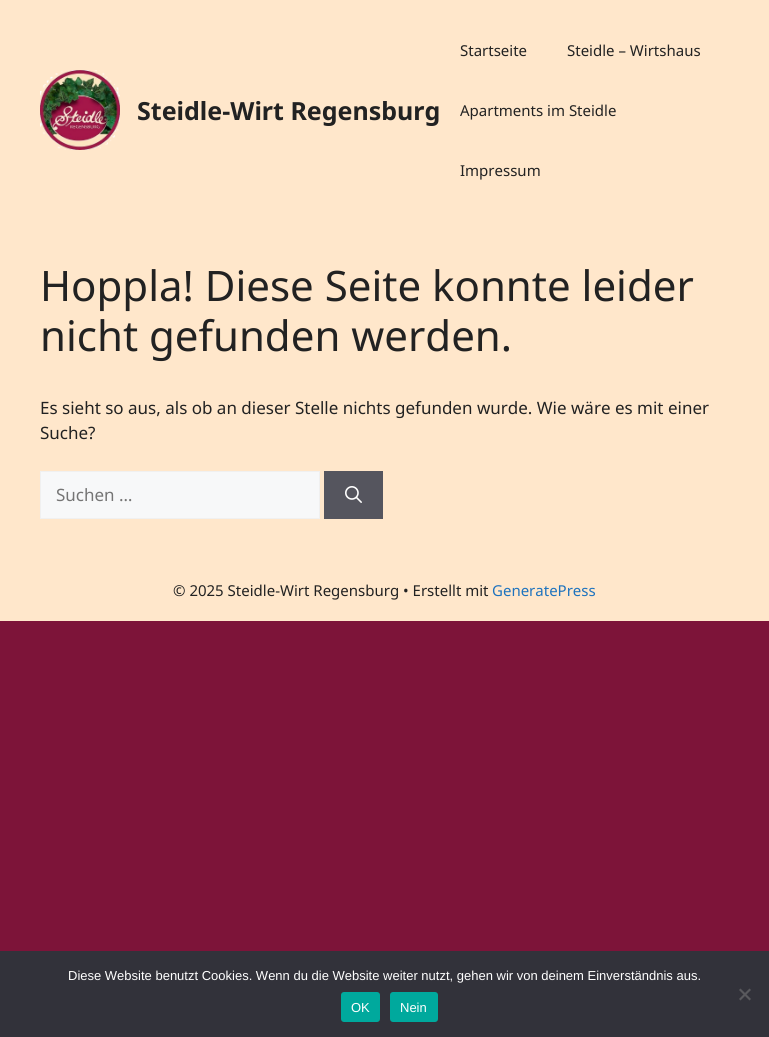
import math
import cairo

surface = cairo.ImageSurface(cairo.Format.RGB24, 769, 1037)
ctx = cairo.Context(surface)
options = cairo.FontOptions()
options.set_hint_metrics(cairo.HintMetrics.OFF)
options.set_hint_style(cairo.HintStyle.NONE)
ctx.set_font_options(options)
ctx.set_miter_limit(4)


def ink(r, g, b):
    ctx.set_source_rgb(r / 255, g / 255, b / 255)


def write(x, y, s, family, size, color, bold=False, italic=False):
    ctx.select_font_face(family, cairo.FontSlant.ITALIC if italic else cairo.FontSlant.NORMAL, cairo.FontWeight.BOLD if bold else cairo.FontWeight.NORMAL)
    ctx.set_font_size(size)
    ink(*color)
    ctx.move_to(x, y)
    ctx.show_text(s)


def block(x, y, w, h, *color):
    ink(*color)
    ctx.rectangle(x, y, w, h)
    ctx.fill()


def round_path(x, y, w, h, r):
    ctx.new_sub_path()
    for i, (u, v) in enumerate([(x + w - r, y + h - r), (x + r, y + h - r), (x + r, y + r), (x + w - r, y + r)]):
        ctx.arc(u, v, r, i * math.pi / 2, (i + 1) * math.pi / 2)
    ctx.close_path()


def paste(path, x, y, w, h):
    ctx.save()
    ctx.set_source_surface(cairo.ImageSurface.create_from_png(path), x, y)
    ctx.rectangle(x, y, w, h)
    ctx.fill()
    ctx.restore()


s1 = dict(family="Noto Sans", size=25, color=(34, 34, 34), bold=True)
s2 = dict(family="Noto Sans", size=15, color=(34, 34, 34))
s3 = dict(family="Noto Sans", size=42, color=(34, 34, 34))
s4 = dict(family="Noto Sans", size=17, color=(34, 34, 34))
s5 = dict(family="Noto Sans", size=17, color=(117, 117, 117))
s6 = dict(family="Noto Sans", size=15, color=(30, 115, 190))
s7 = dict(family="Liberation Sans", size=13, color=(255, 255, 255))

ink(125, 20, 57)
ctx.paint()
block(0, 0, 769, 621, 255, 231, 203)
paste("pic1.png", 40, 70, 80, 80)
write(137, 120, "Steidle-Wirt Regensburg", **s1)
write(460, 56, "Startseite", **s2)
write(567, 56, "Steidle – Wirtshaus", **s2)
write(460, 116, "Apartments im Steidle", **s2)
write(460, 176, "Impressum", **s2)
write(40, 301, "Hoppla! Diese Seite konnte leider", **s3)
write(40, 351, "nicht gefunden werden.", **s3)
write(40, 414, "Es sieht so aus, als ob an dieser Stelle nichts gefunden wurde. Wie wäre es mit einer", **s4)
write(40, 439, "Suche?", **s4)
ink(247, 248, 249)
ctx.rectangle(40.5, 471.5, 279, 47)
ctx.fill_preserve()
ink(240, 240, 240)
ctx.set_line_width(1)
ctx.stroke()
write(56, 501, "Suchen …", **s5)
block(324, 471, 59, 48, 85, 85, 94)
paste("pic2.png", 345, 486, 17, 17)
write(173, 596, "© 2025 Steidle-Wirt Regensburg • Erstellt mit", **s2)
write(492, 596, "GeneratePress", **s6)
block(0, 951, 769, 86, 50, 50, 58)
write(68, 980, "Diese Website benutzt Cookies. Wenn du die Website weiter nutzt, gehen wir von deinem Einverständnis aus.", **s7)
ink(89, 89, 93)
ctx.new_path()
ctx.move_to(749.5, 988.5)
ctx.line_to(751, 990)
ctx.line_to(740.5, 1000.5)
ctx.line_to(739, 999)
ctx.close_path()
ctx.fill()
ctx.new_path()
ctx.move_to(739, 990)
ctx.line_to(740.5, 988.5)
ctx.line_to(751, 999)
ctx.line_to(749.5, 1000.5)
ctx.close_path()
ctx.fill()
ink(0, 169, 157)
round_path(341, 992, 39, 30, 3)
ctx.fill()
write(351, 1012, "OK", **s7)
ink(0, 169, 157)
round_path(390, 992, 48, 30, 3)
ctx.fill()
write(400, 1012, "Nein", **s7)
surface.write_to_png("screenshot.png")
